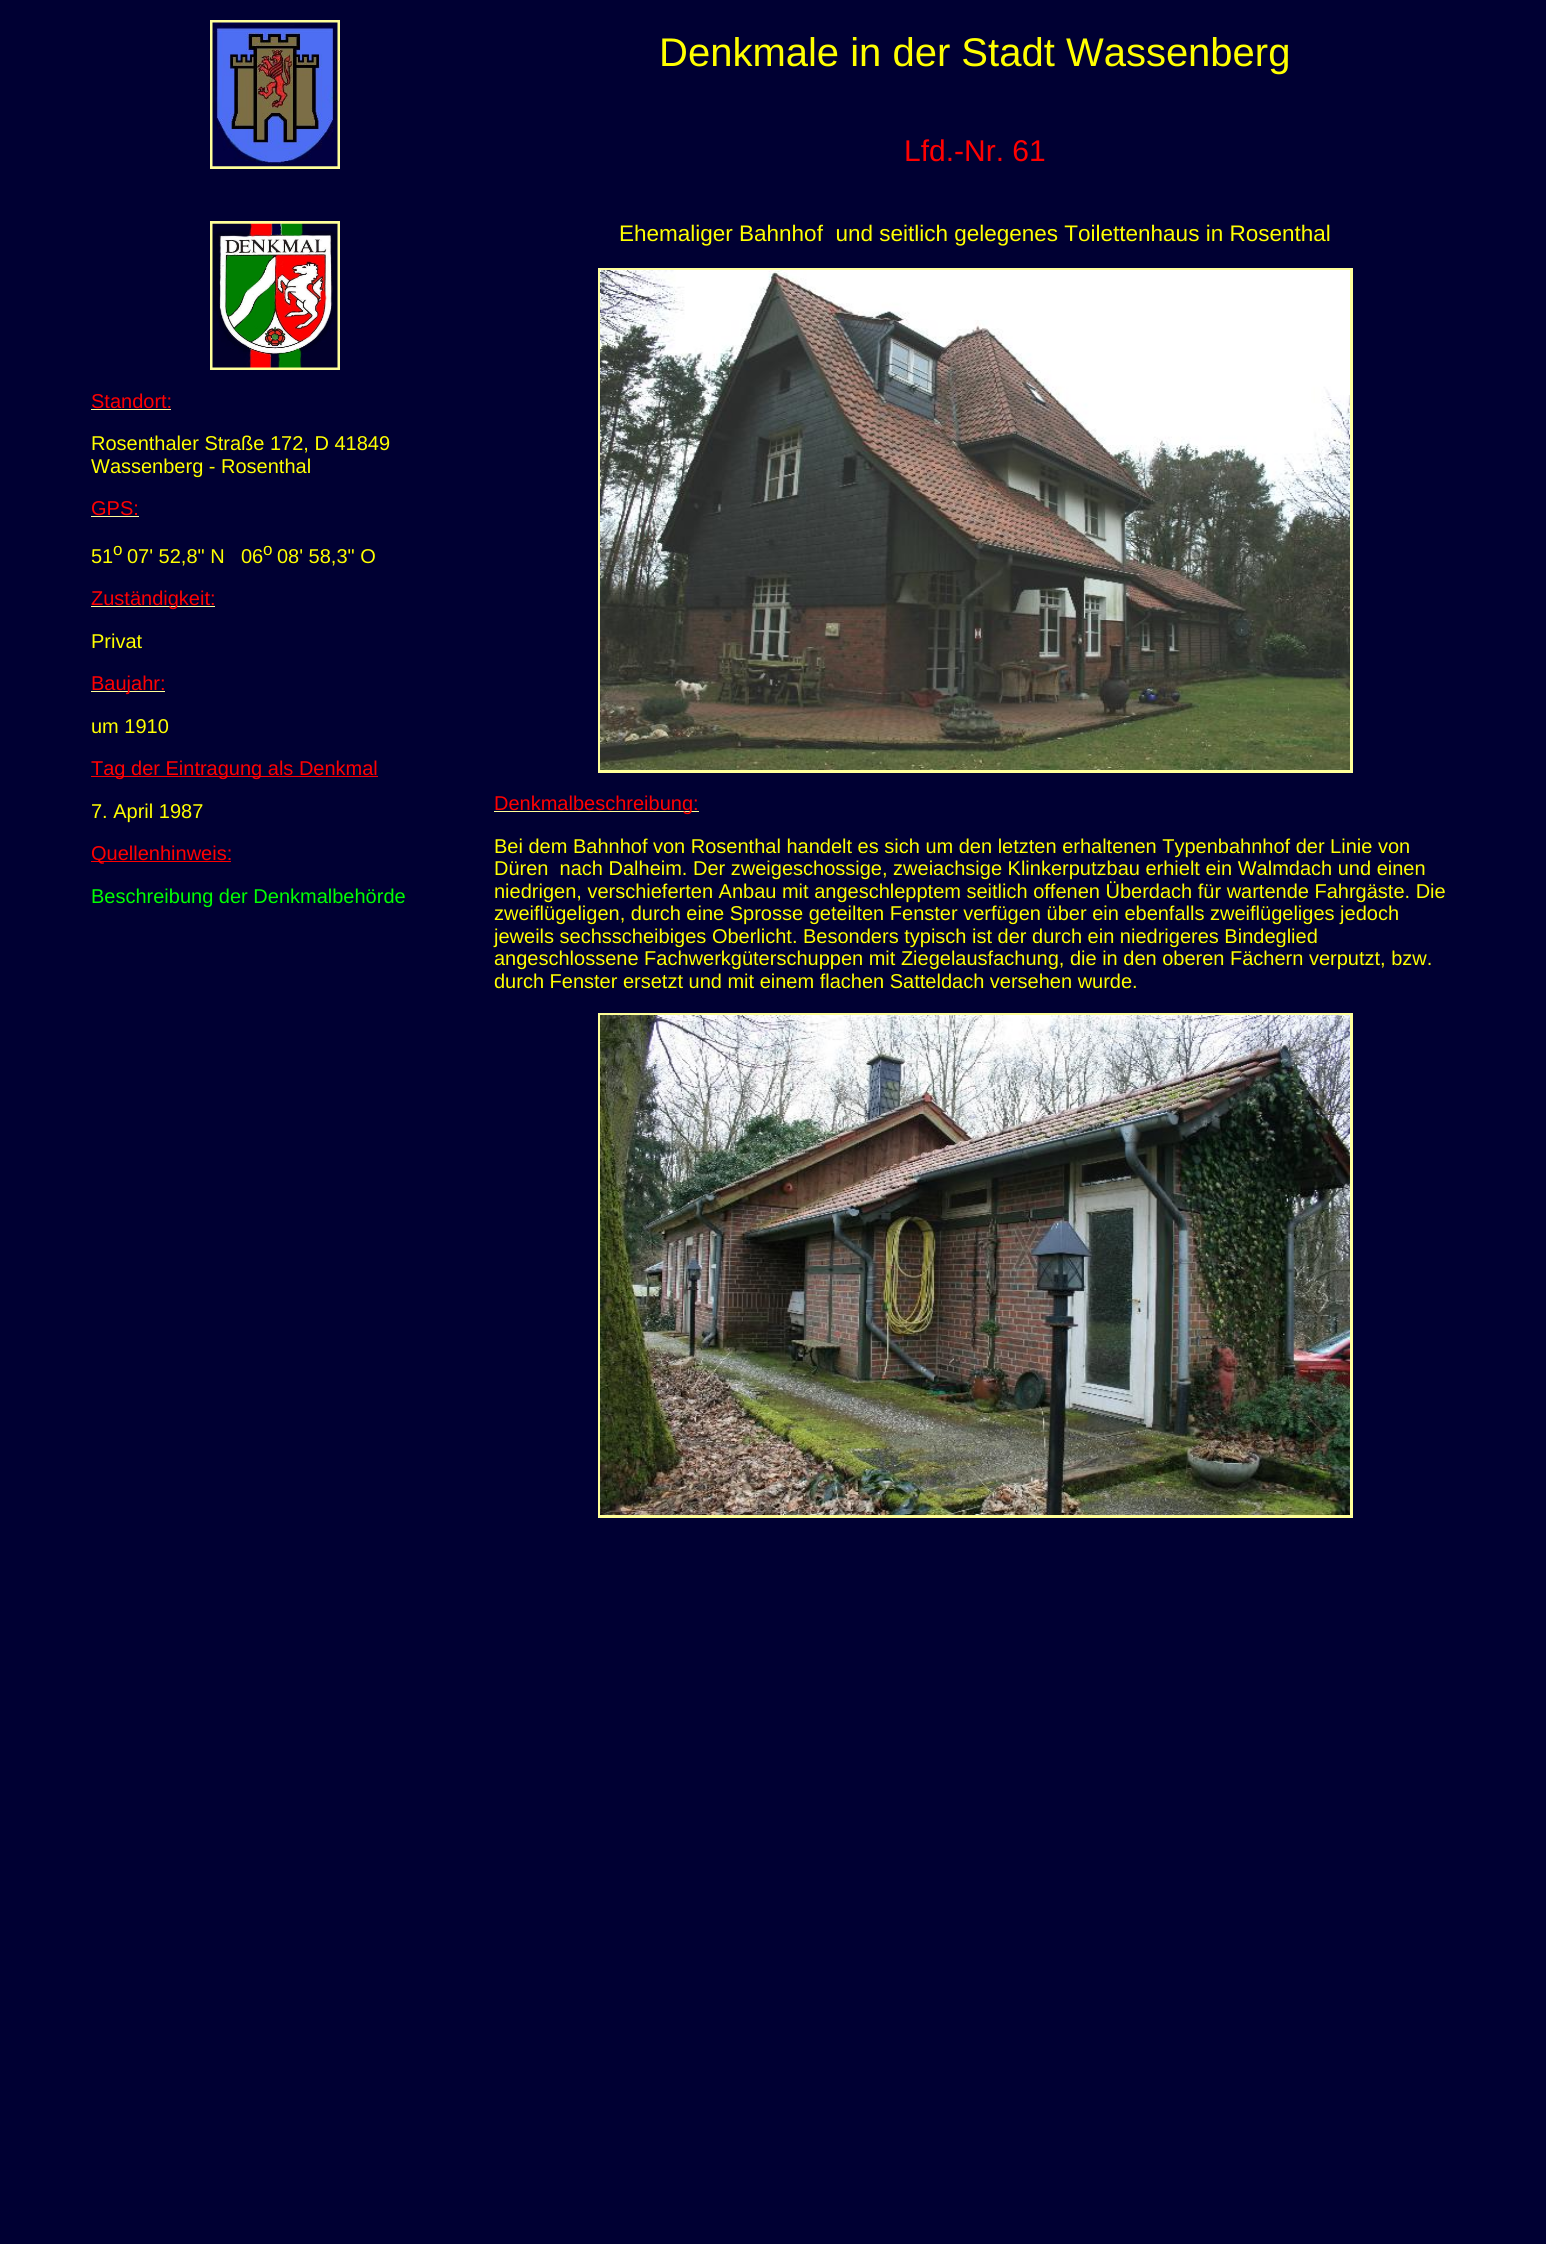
import math
import cairo

surface = cairo.ImageSurface(cairo.Format.RGB24, 1546, 2244)
ctx = cairo.Context(surface)
options = cairo.FontOptions()
options.set_hint_metrics(cairo.HintMetrics.OFF)
options.set_hint_style(cairo.HintStyle.NONE)
ctx.set_font_options(options)
ctx.set_miter_limit(4)


def ink(r, g, b):
    ctx.set_source_rgb(r / 255, g / 255, b / 255)


def write(x, y, s, family, size, color, bold=False, italic=False):
    ctx.select_font_face(family, cairo.FontSlant.ITALIC if italic else cairo.FontSlant.NORMAL, cairo.FontWeight.BOLD if bold else cairo.FontWeight.NORMAL)
    ctx.set_font_size(size)
    ink(*color)
    ctx.move_to(x, y)
    ctx.show_text(s)


def block(x, y, w, h, *color):
    ink(*color)
    ctx.rectangle(x, y, w, h)
    ctx.fill()


def paste(path, x, y, w, h):
    ctx.save()
    ctx.set_source_surface(cairo.ImageSurface.create_from_png(path), x, y)
    ctx.rectangle(x, y, w, h)
    ctx.fill()
    ctx.restore()


s1 = dict(family="Liberation Sans", size=40, color=(255, 255, 0))
s2 = dict(family="Liberation Sans", size=30, color=(255, 0, 0))
s3 = dict(family="Liberation Sans", size=20, color=(255, 0, 0))
s4 = dict(family="Liberation Sans", size=20, color=(255, 255, 0))
s5 = dict(family="Liberation Sans", size=17, color=(255, 255, 0))
s6 = dict(family="Liberation Sans", size=20, color=(0, 255, 0))
s7 = dict(family="Liberation Sans", size=22.5, color=(255, 255, 0))

ink(0, 0, 51)
ctx.paint()
ctx.rectangle(211.5, 21.5, 127, 146)
ink(255, 255, 153)
ctx.set_line_width(3)
ctx.stroke()
paste("pic1.png", 212, 22, 126, 145)
write(659, 66, "Denkmale in der Stadt Wassenberg", **s1)
write(904, 161, "Lfd.-Nr. 61", **s2)
ctx.rectangle(211.5, 222.5, 127, 146)
ink(255, 255, 153)
ctx.stroke()
paste("pic2.png", 212, 223, 126, 145)
write(91, 408, "Standort:", **s3)
block(91, 409, 80, 1, 255, 255, 153)
write(91, 450, "Rosenthaler Straße 172, D 41849", **s4)
write(91, 473, "Wassenberg - Rosenthal", **s4)
write(91, 515, "GPS:", **s3)
block(91, 516, 48, 1, 255, 255, 153)
write(91, 563, "51", **s4)
write(113, 555, "o", **s5)
write(127, 563, "07' 52,8\" N", **s4)
write(241, 563, "06", **s4)
write(263, 555, "o", **s5)
write(277, 563, "08' 58,3\" O", **s4)
block(91, 606, 124, 1, 255, 255, 153)
write(91, 605, "Zuständigkeit:", **s3)
write(91, 648, "Privat", **s4)
block(91, 691, 74, 1, 255, 255, 153)
write(91, 690, "Baujahr:", **s3)
write(91, 733, "um 1910", **s4)
block(91, 776, 287, 1, 255, 0, 0)
write(91, 775, "Tag der Eintragung als Denkmal", **s3)
write(91, 818, "7. April 1987", **s4)
block(91, 861, 140, 1, 255, 0, 0)
write(91, 860, "Quellenhinweis:", **s3)
write(91, 903, "Beschreibung der Denkmalbehörde", **s6)
write(619, 241, "Ehemaliger Bahnhof  und seitlich gelegenes Toilettenhaus in Rosenthal", **s7)
ctx.rectangle(599.5, 269.5, 752, 502)
ink(255, 255, 153)
ctx.stroke()
paste("pic3.png", 600, 270, 750, 500)
block(494, 811, 205, 1, 255, 255, 153)
write(494, 810, "Denkmalbeschreibung:", **s3)
write(494, 853, "Bei dem Bahnhof von Rosenthal handelt es sich um den letzten erhaltenen Typenbahnhof der Linie von", **s4)
write(494, 875, "Düren  nach Dalheim. Der zweigeschossige, zweiachsige Klinkerputzbau erhielt ein Walmdach und einen", **s4)
write(494, 898, "niedrigen, verschieferten Anbau mit angeschlepptem seitlich offenen Überdach für wartende Fahrgäste. Die", **s4)
write(494, 920, "zweiflügeligen, durch eine Sprosse geteilten Fenster verfügen über ein ebenfalls zweiflügeliges jedoch", **s4)
write(494, 943, "jeweils sechsscheibiges Oberlicht. Besonders typisch ist der durch ein niedrigeres Bindeglied", **s4)
write(494, 965, "angeschlossene Fachwerkgüterschuppen mit Ziegelausfachung, die in den oberen Fächern verputzt, bzw.", **s4)
write(494, 988, "durch Fenster ersetzt und mit einem flachen Satteldach versehen wurde.", **s4)
ctx.rectangle(599.5, 1014.5, 752, 502)
ink(255, 255, 153)
ctx.stroke()
paste("pic4.png", 600, 1015, 750, 500)
surface.write_to_png("screenshot.png")
